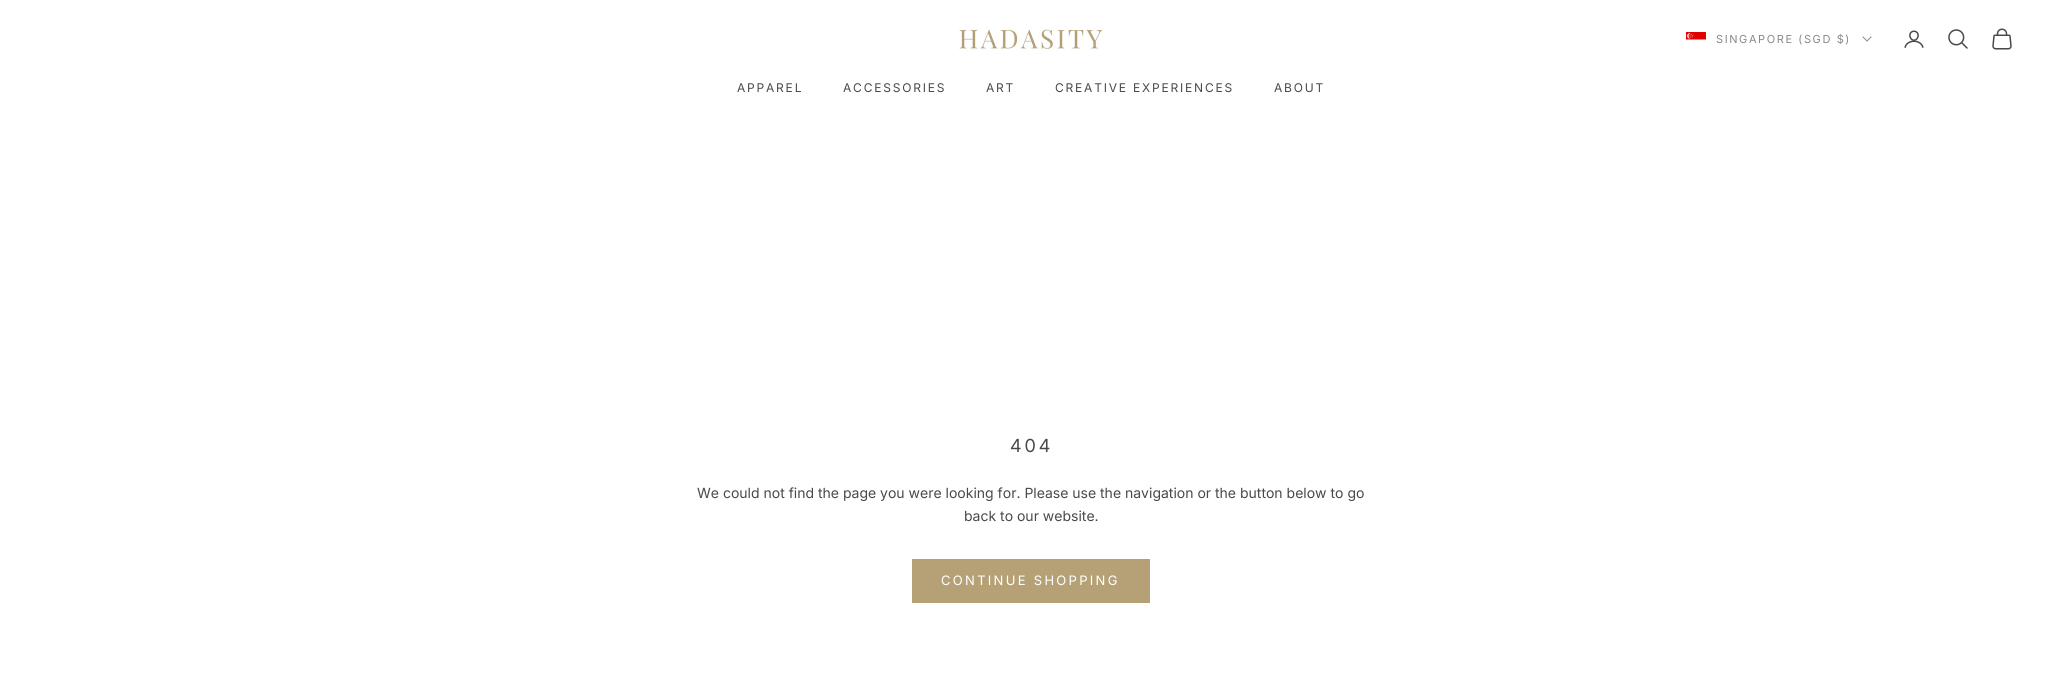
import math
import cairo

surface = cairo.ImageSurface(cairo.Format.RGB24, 2062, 692)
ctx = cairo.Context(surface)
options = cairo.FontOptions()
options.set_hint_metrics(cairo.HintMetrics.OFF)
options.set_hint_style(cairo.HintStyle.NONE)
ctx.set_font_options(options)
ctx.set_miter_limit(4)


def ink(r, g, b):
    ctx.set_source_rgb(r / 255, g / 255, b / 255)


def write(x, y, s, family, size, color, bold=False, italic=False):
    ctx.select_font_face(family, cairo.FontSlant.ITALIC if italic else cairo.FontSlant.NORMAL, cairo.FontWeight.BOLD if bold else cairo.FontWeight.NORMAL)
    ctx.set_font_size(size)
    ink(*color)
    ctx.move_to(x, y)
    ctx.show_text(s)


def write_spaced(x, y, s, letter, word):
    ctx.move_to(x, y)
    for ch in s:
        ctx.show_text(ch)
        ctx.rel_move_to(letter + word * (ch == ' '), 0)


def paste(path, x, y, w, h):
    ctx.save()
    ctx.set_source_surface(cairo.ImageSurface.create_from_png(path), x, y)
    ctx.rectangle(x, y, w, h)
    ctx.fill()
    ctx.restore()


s1 = dict(family="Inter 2", size=14, color=(73, 73, 73))

ink(255, 255, 255)
ctx.paint()
paste("pic1.png", 959, 27, 144, 24)
paste("pic2.png", 1686, 32, 20, 8)
ctx.select_font_face("Inter 2")
ctx.set_font_size(11)
ink(137, 137, 137)
write_spaced(1716, 43, "SINGAPORE (SGD $)", 1.6, 0)
ctx.new_path()
ctx.move_to(1863, 37)
ctx.line_to(1867, 41)
ctx.line_to(1871, 37)
ctx.set_line_width(1)
ctx.set_line_cap(cairo.LineCap.SQUARE)
ctx.stroke()
paste("pic3.png", 1904, 30, 20, 18)
paste("pic4.png", 1948, 29, 20, 20)
paste("pic5.png", 1992, 28, 20, 22)
ctx.set_font_size(12)
ink(73, 73, 73)
write_spaced(737, 92, "APPAREL", 1.8, 0)
write_spaced(843, 92, "ACCESSORIES", 1.8, 0)
write_spaced(986, 92, "ART", 1.8, 0)
write_spaced(1055, 92, "CREATIVE EXPERIENCES", 1.8, 0)
write_spaced(1274, 92, "ABOUT", 1.8, 0)
ctx.select_font_face("Inter")
ctx.set_font_size(18)
write_spaced(1010, 452, "404", 3, 0)
write(697, 498, "We could not find the page you were looking for. Please use the navigation or the button below to go", **s1)
write(964, 521, "back to our website.", **s1)
ink(182, 161, 118)
ctx.rectangle(912.5, 559.5, 237, 43)
ctx.fill_preserve()
ctx.set_line_cap(cairo.LineCap.BUTT)
ctx.stroke()
ctx.set_font_size(13)
ink(255, 255, 255)
write_spaced(941, 585, "CONTINUE SHOPPING", 2.3, 0)
surface.write_to_png("screenshot.png")
